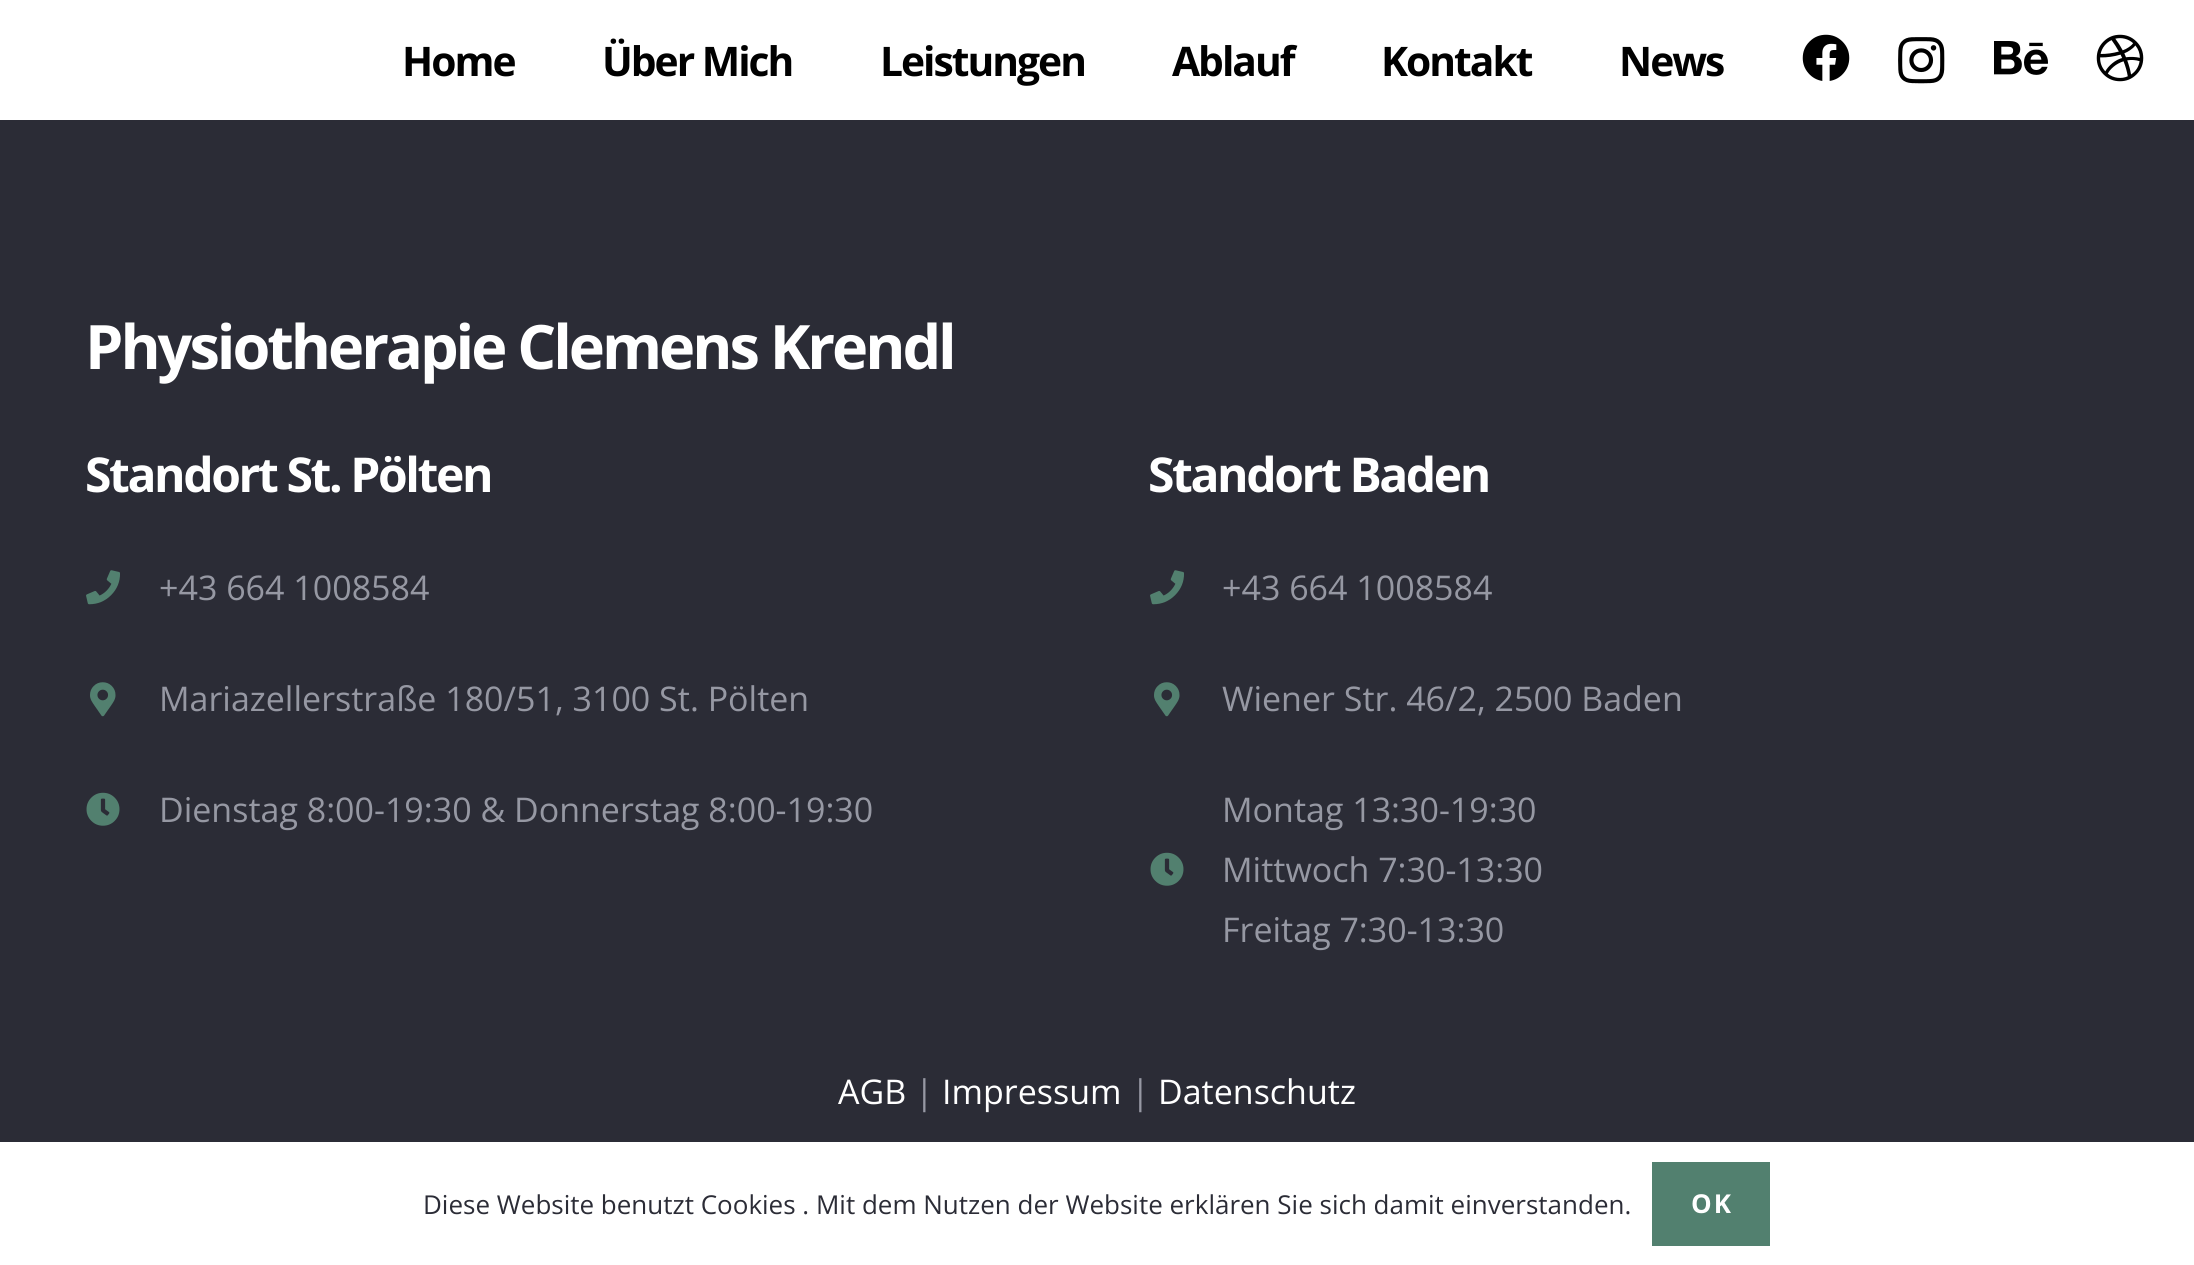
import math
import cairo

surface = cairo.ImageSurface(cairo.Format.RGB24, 2194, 1265)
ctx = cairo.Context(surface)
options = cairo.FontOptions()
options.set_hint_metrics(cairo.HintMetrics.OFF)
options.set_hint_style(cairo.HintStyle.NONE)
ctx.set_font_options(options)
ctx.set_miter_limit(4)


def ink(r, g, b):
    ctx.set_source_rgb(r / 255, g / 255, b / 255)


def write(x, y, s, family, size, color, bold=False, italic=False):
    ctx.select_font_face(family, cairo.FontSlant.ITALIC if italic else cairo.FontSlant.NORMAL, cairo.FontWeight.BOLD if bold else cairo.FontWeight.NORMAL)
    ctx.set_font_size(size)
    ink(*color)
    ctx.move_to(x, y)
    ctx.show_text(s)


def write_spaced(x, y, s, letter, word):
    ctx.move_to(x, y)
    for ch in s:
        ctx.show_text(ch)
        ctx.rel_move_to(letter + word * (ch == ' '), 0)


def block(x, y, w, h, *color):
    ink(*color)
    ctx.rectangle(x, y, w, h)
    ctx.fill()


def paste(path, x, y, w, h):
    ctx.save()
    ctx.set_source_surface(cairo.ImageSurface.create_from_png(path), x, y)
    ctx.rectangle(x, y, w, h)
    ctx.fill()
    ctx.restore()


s1 = dict(family="Open Sans", size=34, color=(150, 152, 163))
s2 = dict(family="Open Sans", size=34, color=(255, 255, 255))
s3 = dict(family="Open Sans", size=26, color=(43, 44, 54))

ink(43, 44, 54)
ctx.paint()
block(0, 0, 2194, 120, 255, 255, 255)
ctx.select_font_face("Open Sans", cairo.FontSlant.NORMAL, cairo.FontWeight.BOLD)
ctx.set_font_size(40.75)
ink(0, 0, 0)
write_spaced(402, 76, "Home", -2, 0)
write_spaced(602, 76, "Über Mich", -2, 0)
write_spaced(880, 76, "Leistungen", -2, 0)
write_spaced(1172, 76, "Ablauf", -2, 0)
write_spaced(1381, 76, "Kontakt", -2, 0)
write_spaced(1619, 76, "News", -2, 0)
paste("pic1.png", 1802, 34, 48, 47)
paste("pic2.png", 1898, 37, 47, 47)
paste("pic3.png", 1994, 41, 54, 34)
paste("pic4.png", 2096, 34, 48, 48)
ctx.set_font_size(61.25)
ink(255, 255, 255)
write_spaced(85, 369, "Physiotherapie Clemens Krendl", -3.05, 0)
ctx.set_font_size(48)
write_spaced(85, 492, "Standort St. Pölten", -2.4, 0)
paste("pic5.png", 86, 570, 34, 35)
write(159, 600, "+43 664 1008584", **s1)
paste("pic6.png", 90, 682, 26, 35)
write(159, 711, "Mariazellerstraße 180/51, 3100 St. Pölten", **s1)
paste("pic7.png", 86, 792, 34, 34)
write(159, 822, "Dienstag 8:00-19:30 & Donnerstag 8:00-19:30", **s1)
ctx.select_font_face("Open Sans", cairo.FontSlant.NORMAL, cairo.FontWeight.BOLD)
ctx.set_font_size(48)
ink(255, 255, 255)
write_spaced(1148, 492, "Standort Baden", -2.4, 0)
paste("pic5.png", 1150, 570, 34, 35)
write(1222, 600, "+43 664 1008584", **s1)
paste("pic6.png", 1154, 682, 26, 35)
write(1222, 711, "Wiener Str. 46/2, 2500 Baden", **s1)
paste("pic7.png", 1150, 852, 34, 34)
write(1222, 822, "Montag 13:30-19:30", **s1)
write(1222, 882, "Mittwoch 7:30-13:30", **s1)
write(1222, 942, "Freitag 7:30-13:30", **s1)
write(838, 1104, "AGB", **s2)
write(915, 1104, "|", **s1)
write(942, 1104, "Impressum", **s2)
write(1131, 1104, "|", **s1)
write(1158, 1104, "Datenschutz", **s2)
block(0, 1142, 2194, 123, 255, 255, 255)
write(423, 1214, "Diese Website benutzt Cookies . Mit dem Nutzen der Website erklären Sie sich damit einverstanden.", **s3)
block(1652, 1162, 118, 84, 82, 128, 111)
ctx.select_font_face("Open Sans", cairo.FontSlant.NORMAL, cairo.FontWeight.BOLD)
ink(255, 255, 255)
write_spaced(1691, 1213, "OK", 2, 0)
surface.write_to_png("screenshot.png")
